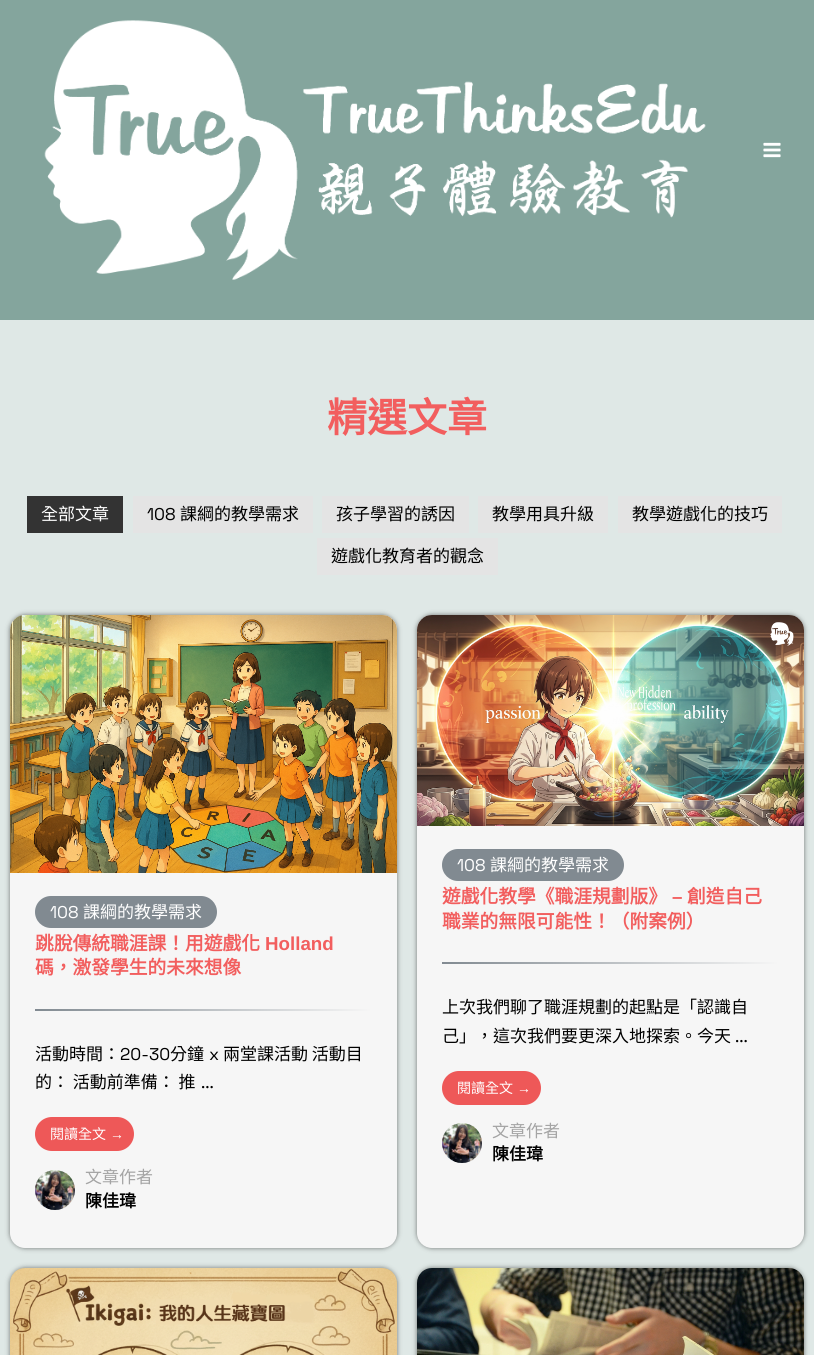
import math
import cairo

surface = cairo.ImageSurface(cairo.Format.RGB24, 814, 1355)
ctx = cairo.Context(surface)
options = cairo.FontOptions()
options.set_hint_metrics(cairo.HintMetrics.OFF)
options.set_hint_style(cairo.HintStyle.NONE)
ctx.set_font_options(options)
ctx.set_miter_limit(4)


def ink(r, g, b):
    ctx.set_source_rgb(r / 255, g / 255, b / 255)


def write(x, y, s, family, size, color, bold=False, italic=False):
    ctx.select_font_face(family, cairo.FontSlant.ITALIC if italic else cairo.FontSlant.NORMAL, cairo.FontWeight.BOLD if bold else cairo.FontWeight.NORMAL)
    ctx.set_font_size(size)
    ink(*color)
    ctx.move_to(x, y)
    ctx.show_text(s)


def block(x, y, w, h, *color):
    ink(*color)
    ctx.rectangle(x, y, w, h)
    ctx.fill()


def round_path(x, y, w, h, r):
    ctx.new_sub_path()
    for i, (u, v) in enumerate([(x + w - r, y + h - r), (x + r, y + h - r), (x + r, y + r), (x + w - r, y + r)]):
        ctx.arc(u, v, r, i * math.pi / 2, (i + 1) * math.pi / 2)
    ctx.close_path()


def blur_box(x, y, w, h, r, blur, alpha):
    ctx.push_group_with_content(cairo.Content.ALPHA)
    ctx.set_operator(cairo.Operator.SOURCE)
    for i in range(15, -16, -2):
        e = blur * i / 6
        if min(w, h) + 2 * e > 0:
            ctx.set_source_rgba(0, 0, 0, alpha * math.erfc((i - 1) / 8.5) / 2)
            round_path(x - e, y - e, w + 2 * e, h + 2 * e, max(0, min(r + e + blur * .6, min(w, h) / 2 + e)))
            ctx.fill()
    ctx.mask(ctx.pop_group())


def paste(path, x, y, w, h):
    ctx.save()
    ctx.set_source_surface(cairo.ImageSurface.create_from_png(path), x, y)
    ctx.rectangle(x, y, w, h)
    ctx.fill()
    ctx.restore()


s1 = dict(family="Noto Sans CJK TC", size=40, color=(242, 94, 94), bold=True)
s2 = dict(family="Noto Sans CJK TC", size=17, color=(255, 255, 255))
s3 = dict(family="Space Grotesk Light", size=17, color=(0, 0, 0))
s4 = dict(family="Noto Sans CJK TC", size=17, color=(0, 0, 0))
s5 = dict(family="Space Grotesk Light", size=17, color=(255, 255, 255))
s6 = dict(family="Noto Sans CJK TC", size=18.75, color=(242, 94, 94), bold=True)
s7 = dict(family="Liberation Sans", size=18.75, color=(242, 94, 94), bold=True)
s8 = dict(family="Noto Sans CJK TC", size=14, color=(255, 255, 255))
s9 = dict(family="Liberation Sans", size=14, color=(255, 255, 255))
s10 = dict(family="Noto Sans CJK TC", size=17, color=(164, 164, 164))
s11 = dict(family="Noto Sans CJK TC", size=17, color=(0, 0, 0), bold=True)

ink(132, 165, 157)
ctx.paint()
paste("pic1.png", 44, 20, 662, 260)
paste("pic2.png", 763, 142, 18, 16)
block(0, 320, 814, 1035, 223, 232, 230)
write(327, 432, "精選文章", **s1)
block(27, 496, 96, 37, 51, 51, 51)
write(41, 520, "全部文章", **s2)
block(133, 496, 180, 37, 228, 228, 228)
write(147, 520, "108", **s3)
write(180, 520, "課綱的教學需求", **s4)
block(322, 496, 147, 37, 228, 228, 228)
write(336, 520, "孩子學習的誘因", **s4)
block(478, 496, 130, 37, 228, 228, 228)
write(492, 520, "教學用具升級", **s4)
block(618, 496, 164, 37, 228, 228, 228)
write(632, 520, "教學遊戲化的技巧", **s4)
block(317, 538, 181, 37, 228, 228, 228)
write(331, 562, "遊戲化教育者的觀念", **s4)
ink(0, 0, 0)
blur_box(10, 615, 387, 633, 15, 2.5, 0.5)
ink(246, 246, 246)
round_path(10, 615, 387, 633, 15)
ctx.fill()
paste("pic3.png", 10, 615, 387, 258)
ink(129, 138, 145)
round_path(35, 896, 182, 32, 16)
ctx.fill()
write(50, 918, "108", **s5)
write(83, 918, "課綱的教學需求", **s2)
write(35, 950, "跳脫傳統職涯課！用遊戲化", **s6)
write(265, 950, "Holland", **s7)
write(35, 974, "碼，激發學生的未來想像", **s6)
gradient = cairo.LinearGradient(35, 1010, 372, 1010)
gradient.add_color_stop_rgba(0, 0.506, 0.541, 0.569, 1)
gradient.add_color_stop_rgba(1, 0.965, 0.965, 0.965, 1)
ctx.set_source(gradient)
ctx.rectangle(35, 1009, 337, 2)
ctx.fill()
write(35, 1060, "活動時間：", **s4)
write(120, 1060, "20-30", **s3)
write(170, 1060, "分鐘", **s4)
write(209, 1060, "x", **s3)
write(223, 1060, "兩堂課活動 活動目", **s4)
write(35, 1088, "的： 活動前準備： 推", **s4)
write(201, 1088, "...", **s3)
ink(238, 88, 88)
round_path(35, 1117, 99, 34, 17)
ctx.fill()
write(50, 1139, "閱讀全文", **s8)
write(110, 1139, "→", **s9)
paste("pic4.png", 35, 1170, 40, 40)
write(85, 1183, "文章作者", **s10)
write(85, 1207, "陳佳瑋", **s11)
ink(0, 0, 0)
blur_box(417, 615, 387, 633, 15, 2.5, 0.5)
ink(246, 246, 246)
round_path(417, 615, 387, 633, 15)
ctx.fill()
paste("pic5.png", 417, 615, 387, 211)
ink(129, 138, 145)
round_path(442, 849, 182, 32, 16)
ctx.fill()
write(457, 871, "108", **s5)
write(490, 871, "課綱的教學需求", **s2)
write(442, 903, "遊戲化教學《職涯規劃版》", **s6)
write(672, 903, "–", **s7)
write(687, 903, "創造自己", **s6)
write(442, 928, "職業的無限可能性！（附案例）", **s6)
gradient = cairo.LinearGradient(442, 963, 779, 963)
gradient.add_color_stop_rgba(0, 0.506, 0.541, 0.569, 1)
gradient.add_color_stop_rgba(1, 0.965, 0.965, 0.965, 1)
ctx.set_source(gradient)
ctx.rectangle(442, 962, 337, 2)
ctx.fill()
write(442, 1013, "上次我們聊了職涯規劃的起點是「認識自", **s4)
write(442, 1042, "己」，這次我們要更深入地探索。今天", **s4)
write(735, 1042, "...", **s3)
ink(238, 88, 88)
round_path(442, 1071, 99, 34, 17)
ctx.fill()
write(457, 1093, "閱讀全文", **s8)
write(517, 1093, "→", **s9)
paste("pic4.png", 442, 1123, 40, 40)
write(492, 1137, "文章作者", **s10)
write(492, 1160, "陳佳瑋", **s11)
ink(0, 0, 0)
blur_box(10, 1268, 387, 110, 15, 2.5, 0.5)
paste("pic6.png", 10, 1268, 387, 87)
blur_box(417, 1268, 387, 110, 15, 2.5, 0.5)
paste("pic7.png", 417, 1268, 387, 87)
surface.write_to_png("screenshot.png")
